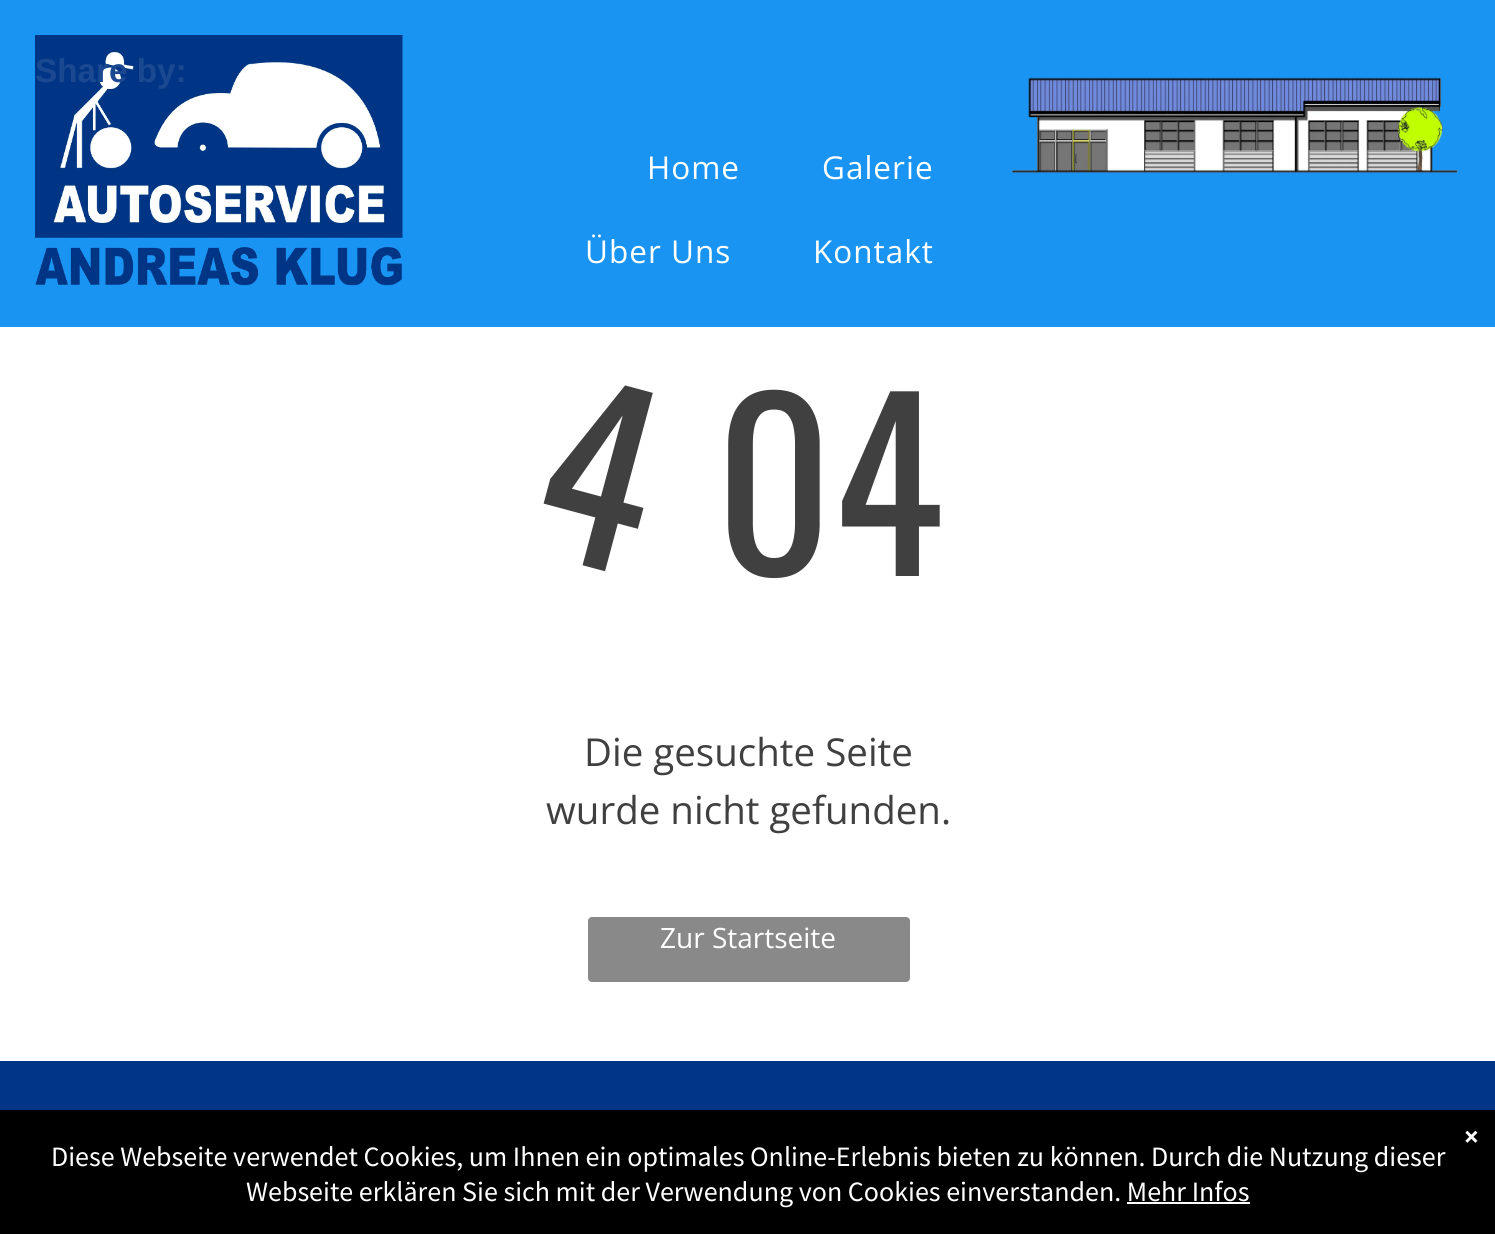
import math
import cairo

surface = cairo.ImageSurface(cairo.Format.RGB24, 1495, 1234)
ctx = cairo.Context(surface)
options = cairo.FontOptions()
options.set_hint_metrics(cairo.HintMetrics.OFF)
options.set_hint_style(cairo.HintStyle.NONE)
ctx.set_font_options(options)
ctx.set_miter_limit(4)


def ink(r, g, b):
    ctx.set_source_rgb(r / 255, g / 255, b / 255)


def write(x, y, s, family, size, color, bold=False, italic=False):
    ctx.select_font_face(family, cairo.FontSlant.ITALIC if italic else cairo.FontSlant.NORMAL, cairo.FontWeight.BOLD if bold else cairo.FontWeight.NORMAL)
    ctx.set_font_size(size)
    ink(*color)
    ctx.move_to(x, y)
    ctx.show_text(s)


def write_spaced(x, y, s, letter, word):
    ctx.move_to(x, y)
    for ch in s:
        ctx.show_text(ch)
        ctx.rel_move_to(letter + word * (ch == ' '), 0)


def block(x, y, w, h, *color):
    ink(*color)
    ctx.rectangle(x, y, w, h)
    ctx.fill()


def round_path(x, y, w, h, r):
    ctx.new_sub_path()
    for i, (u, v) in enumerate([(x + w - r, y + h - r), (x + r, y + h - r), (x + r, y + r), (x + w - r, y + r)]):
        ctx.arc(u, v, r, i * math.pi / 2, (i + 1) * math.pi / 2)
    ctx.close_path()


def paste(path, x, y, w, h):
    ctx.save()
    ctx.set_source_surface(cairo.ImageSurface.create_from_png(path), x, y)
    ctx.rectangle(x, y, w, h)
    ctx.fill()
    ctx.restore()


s1 = dict(family="Liberation Sans", size=33.25, color=(26, 73, 145), bold=True)
s2 = dict(family="Oswald", size=228, color=(64, 64, 64))
s3 = dict(family="Open Sans", size=38.5, color=(64, 64, 64))
s4 = dict(family="Open Sans", size=28, color=(255, 255, 255))
s5 = dict(family="Source Sans Pro", size=28, color=(255, 255, 255), bold=True)
s6 = dict(family="Source Sans Pro", size=28, color=(255, 255, 255))

ink(255, 255, 255)
ctx.paint()
block(0, 0, 1495, 327, 26, 148, 243)
paste("pic1.png", 35, 35, 368, 251)
write(35, 82, "Share by:", **s1)
paste("pic2.png", 1011, 77, 447, 97)
ctx.select_font_face("Open Sans")
ctx.set_font_size(31.5)
ink(255, 255, 255)
write_spaced(647, 179, "Home", 1, 0)
write_spaced(822, 179, "Galerie", 1, 0)
write_spaced(585, 263, "Über Uns", 1, 0)
write_spaced(813, 263, "Kontakt", 1, 0)
ctx.save()
ctx.translate(522, 549)
ctx.rotate(15 * math.pi / 180)
write(0, 0, "4", **s2)
ctx.restore()
write(715, 576, "04", **s2)
write(584, 766, "Die gesuchte Seite", **s3)
write(546, 824, "wurde nicht gefunden.", **s3)
ink(137, 137, 137)
round_path(588, 917, 322, 65, 4)
ctx.fill()
write(660, 948, "Zur Startseite", **s4)
block(0, 1061, 1495, 49, 0, 54, 133)
block(0, 1110, 1495, 124, 0, 0, 0)
write(1464, 1146, "×", **s5)
write(51, 1166, "Diese Webseite verwendet Cookies, um Ihnen ein optimales Online-Erlebnis bieten zu können. Durch die Nutzung dieser", **s6)
write(246, 1201, "Webseite erklären Sie sich mit der Verwendung von Cookies einverstanden. Mehr Infos", **s6)
block(1127, 1202, 123, 2, 255, 255, 255)
surface.write_to_png("screenshot.png")
